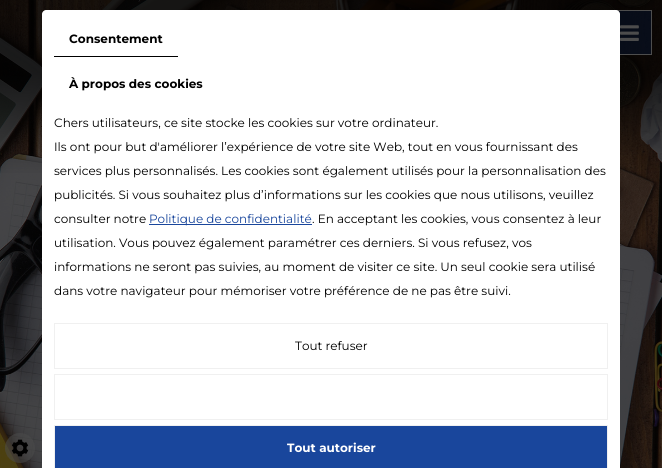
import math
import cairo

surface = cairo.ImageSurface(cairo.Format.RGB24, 662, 468)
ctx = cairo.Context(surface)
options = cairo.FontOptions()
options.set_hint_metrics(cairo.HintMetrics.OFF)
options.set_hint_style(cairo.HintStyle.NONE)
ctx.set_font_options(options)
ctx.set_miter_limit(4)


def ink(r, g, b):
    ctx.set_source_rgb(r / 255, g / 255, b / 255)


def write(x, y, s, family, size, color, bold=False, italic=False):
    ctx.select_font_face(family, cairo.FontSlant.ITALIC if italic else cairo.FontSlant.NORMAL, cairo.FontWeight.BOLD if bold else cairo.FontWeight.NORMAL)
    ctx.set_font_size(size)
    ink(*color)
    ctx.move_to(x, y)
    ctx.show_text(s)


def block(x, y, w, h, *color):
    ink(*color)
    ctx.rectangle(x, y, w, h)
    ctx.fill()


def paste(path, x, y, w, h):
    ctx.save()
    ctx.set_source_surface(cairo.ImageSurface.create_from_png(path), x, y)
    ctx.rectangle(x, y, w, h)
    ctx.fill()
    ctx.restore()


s1 = dict(family="Montserrat", size=12, color=(0, 0, 0), bold=True)
s2 = dict(family="Montserrat", size=12, color=(0, 0, 0))
s3 = dict(family="Montserrat", size=12, color=(25, 70, 156))
s4 = dict(family="Montserrat", size=12, color=(255, 255, 255), bold=True)

ink(255, 255, 255)
ctx.paint()
paste("pic1.png", 0, 0, 662, 468)
paste("pic2.png", 0, 0, 662, 173)
ctx.set_source_rgba(0.302, 0.302, 0.302, 0.54)
ctx.arc(20, 448, 15, 0, 2 * math.pi)
ctx.fill()
paste("pic3.png", 11, 439, 18, 18)
ctx.set_source_rgba(0.031, 0.082, 0.184, 0.5)
ctx.rectangle(618, 11, 33, 43)
ctx.fill()
ctx.rectangle(607.5, 10.5, 44, 44)
ink(77, 77, 77)
ctx.set_line_width(1)
ctx.stroke()
ink(255, 255, 255)
ctx.new_path()
ctx.move_to(46, 10)
ctx.line_to(616, 10)
ctx.curve_to(618, 10, 620, 12, 620, 14)
ctx.line_to(620, 468)
ctx.line_to(42, 468)
ctx.line_to(42, 14)
ctx.curve_to(42, 12, 44, 10, 46, 10)
ctx.close_path()
ctx.fill()
block(54, 56, 124, 1, 0, 0, 0)
write(69, 43, "Consentement", **s1)
write(69, 88, "À propos des cookies", **s1)
write(54, 127, "Chers utilisateurs, ce site stocke les cookies sur votre ordinateur.", **s2)
write(54, 151, "Ils ont pour but d'améliorer l’expérience de votre site Web, tout en vous fournissant des", **s2)
write(54, 175, "services plus personnalisés. Les cookies sont également utilisés pour la personnalisation des", **s2)
write(54, 199, "publicités. Si vous souhaitez plus d’informations sur les cookies que nous utilisons, veuillez", **s2)
write(54, 223, "consulter notre", **s2)
block(149, 224, 163, 1, 25, 70, 156)
write(149, 223, "Politique de confidentialité", **s3)
write(312, 223, ". En acceptant les cookies, vous consentez à leur", **s2)
write(54, 247, "utilisation. Vous pouvez également paramétrer ces derniers. Si vous refusez, vos", **s2)
write(54, 271, "informations ne seront pas suivies, au moment de visiter ce site. Un seul cookie sera utilisé", **s2)
write(54, 295, "dans votre navigateur pour mémoriser votre préférence de ne pas être suivi.", **s2)
ctx.rectangle(54.5, 323.5, 553, 45)
ink(240, 240, 240)
ctx.stroke()
write(295, 350, "Tout refuser", **s2)
ctx.rectangle(54.5, 374.5, 553, 45)
ink(240, 240, 240)
ctx.stroke()
ink(25, 70, 156)
ctx.rectangle(54.5, 425.5, 553, 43)
ctx.fill_preserve()
ink(240, 240, 240)
ctx.stroke()
write(287, 452, "Tout autoriser", **s4)
paste("pic4.png", 620, 25, 19, 16)
surface.write_to_png("screenshot.png")
